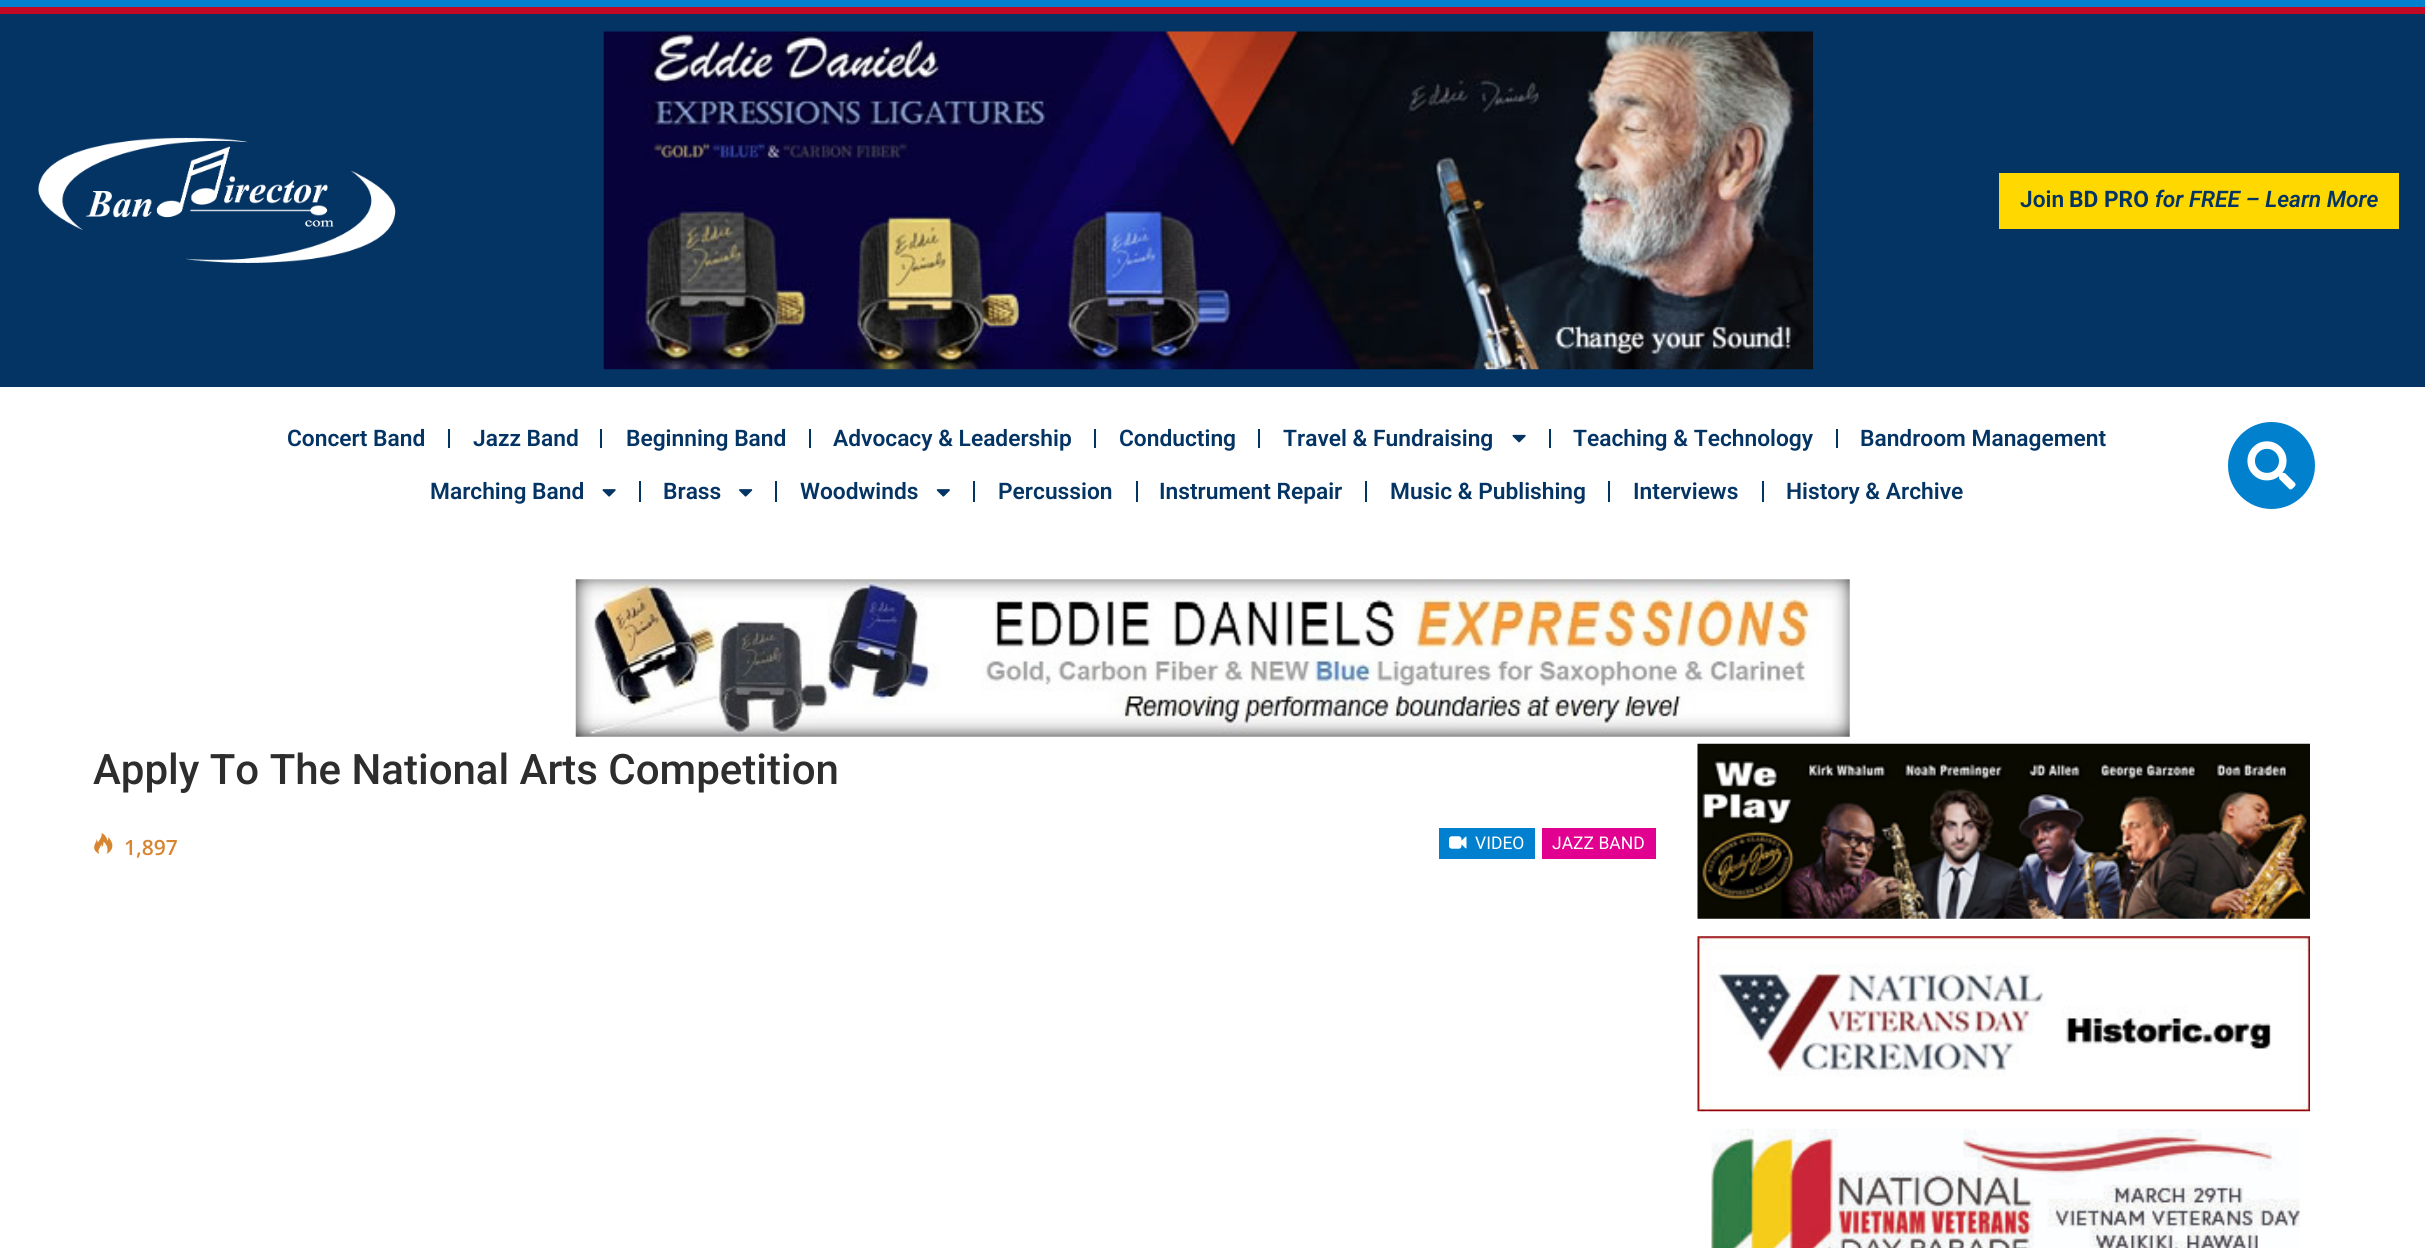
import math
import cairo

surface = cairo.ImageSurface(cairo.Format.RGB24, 2425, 1248)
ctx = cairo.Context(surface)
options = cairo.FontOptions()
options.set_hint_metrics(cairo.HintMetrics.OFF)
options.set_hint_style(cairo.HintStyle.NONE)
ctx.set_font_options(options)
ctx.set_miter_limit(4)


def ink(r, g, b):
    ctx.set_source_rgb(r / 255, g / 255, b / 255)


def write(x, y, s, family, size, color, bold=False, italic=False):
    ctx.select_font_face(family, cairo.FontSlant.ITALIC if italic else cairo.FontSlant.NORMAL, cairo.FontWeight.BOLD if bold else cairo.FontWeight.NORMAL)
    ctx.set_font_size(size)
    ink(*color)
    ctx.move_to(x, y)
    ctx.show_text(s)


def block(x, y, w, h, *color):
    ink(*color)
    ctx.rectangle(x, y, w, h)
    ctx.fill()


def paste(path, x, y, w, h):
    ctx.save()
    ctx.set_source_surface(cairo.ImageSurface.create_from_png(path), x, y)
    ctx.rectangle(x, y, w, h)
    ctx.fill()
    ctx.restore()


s1 = dict(family="Roboto SemiBold", size=22.75, color=(4, 52, 100))
s2 = dict(family="Roboto", size=22.75, color=(4, 52, 100), bold=True)
s3 = dict(family="Roboto SemiBold", size=22.75, color=(4, 52, 100), italic=True)
s4 = dict(family="Roboto Medium", size=42, color=(45, 45, 45))
s5 = dict(family="Open Sans SemiBold", size=21, color=(216, 133, 49))
s6 = dict(family="Roboto", size=17.5, color=(255, 255, 255))

ink(255, 255, 255)
ctx.paint()
block(0, 0, 2425, 7, 0, 128, 206)
block(0, 14, 2425, 373, 4, 52, 100)
block(0, 7, 2425, 7, 193, 9, 35)
paste("pic1.png", 38, 137, 358, 126)
paste("pic2.png", 603, 31, 1210, 339)
block(1999, 173, 400, 56, 255, 216, 0)
write(2020, 207, "Join", **s1)
write(2069, 207, "BD PRO", **s2)
write(2155, 207, "for FREE – Learn More", **s3)
write(287, 446, "Concert Band", **s1)
block(448, 429, 2, 19, 4, 52, 100)
write(473, 446, "Jazz Band", **s1)
block(600, 429, 2, 19, 4, 52, 100)
write(626, 446, "Beginning Band", **s1)
block(809, 429, 2, 19, 4, 52, 100)
write(833, 446, "Advocacy & Leadership", **s1)
block(1094, 429, 2, 19, 4, 52, 100)
write(1119, 446, "Conducting", **s1)
block(1258, 429, 2, 19, 4, 52, 100)
write(1283, 446, "Travel & Fundraising", **s1)
paste("pic3.png", 1512, 434, 14, 9)
block(1549, 429, 2, 19, 4, 52, 100)
write(1573, 446, "Teaching & Technology", **s1)
block(1836, 429, 2, 19, 4, 52, 100)
write(1860, 446, "Bandroom Management", **s1)
write(430, 499, "Marching Band", **s1)
paste("pic4.png", 602, 489, 14, 8)
block(639, 481, 2, 21, 4, 52, 100)
write(663, 499, "Brass", **s1)
paste("pic5.png", 739, 489, 14, 8)
block(775, 481, 2, 21, 4, 52, 100)
write(800, 499, "Woodwinds", **s1)
paste("pic6.png", 936, 489, 14, 8)
block(973, 481, 2, 21, 4, 52, 100)
write(998, 499, "Percussion", **s1)
block(1136, 481, 2, 21, 4, 52, 100)
write(1159, 499, "Instrument Repair", **s1)
block(1365, 481, 2, 21, 4, 52, 100)
write(1390, 499, "Music & Publishing", **s1)
block(1608, 481, 2, 21, 4, 52, 100)
write(1633, 499, "Interviews", **s1)
block(1762, 481, 2, 21, 4, 52, 100)
write(1786, 499, "History & Archive", **s1)
ink(1, 128, 205)
ctx.new_path()
ctx.arc(2271.5, 465.5, 43.5, 0, 2 * math.pi)
ctx.fill()
paste("pic7.png", 2247, 441, 49, 49)
paste("pic8.png", 575, 579, 1275, 158)
write(93, 784, "Apply To The National Arts Competition", **s4)
paste("pic9.png", 94, 833, 19, 21)
write(124, 855, "1,897", **s5)
block(1439, 828, 96, 31, 0, 128, 206)
paste("pic10.png", 1449, 836, 18, 13)
write(1475, 849, "VIDEO", **s6)
block(1542, 828, 114, 31, 226, 0, 144)
write(1552, 849, "JAZZ BAND", **s6)
paste("pic11.png", 1697, 743, 613, 176)
paste("pic12.png", 1697, 936, 613, 176)
paste("pic13.png", 1711, 1128, 589, 120)
surface.write_to_png("screenshot.png")
